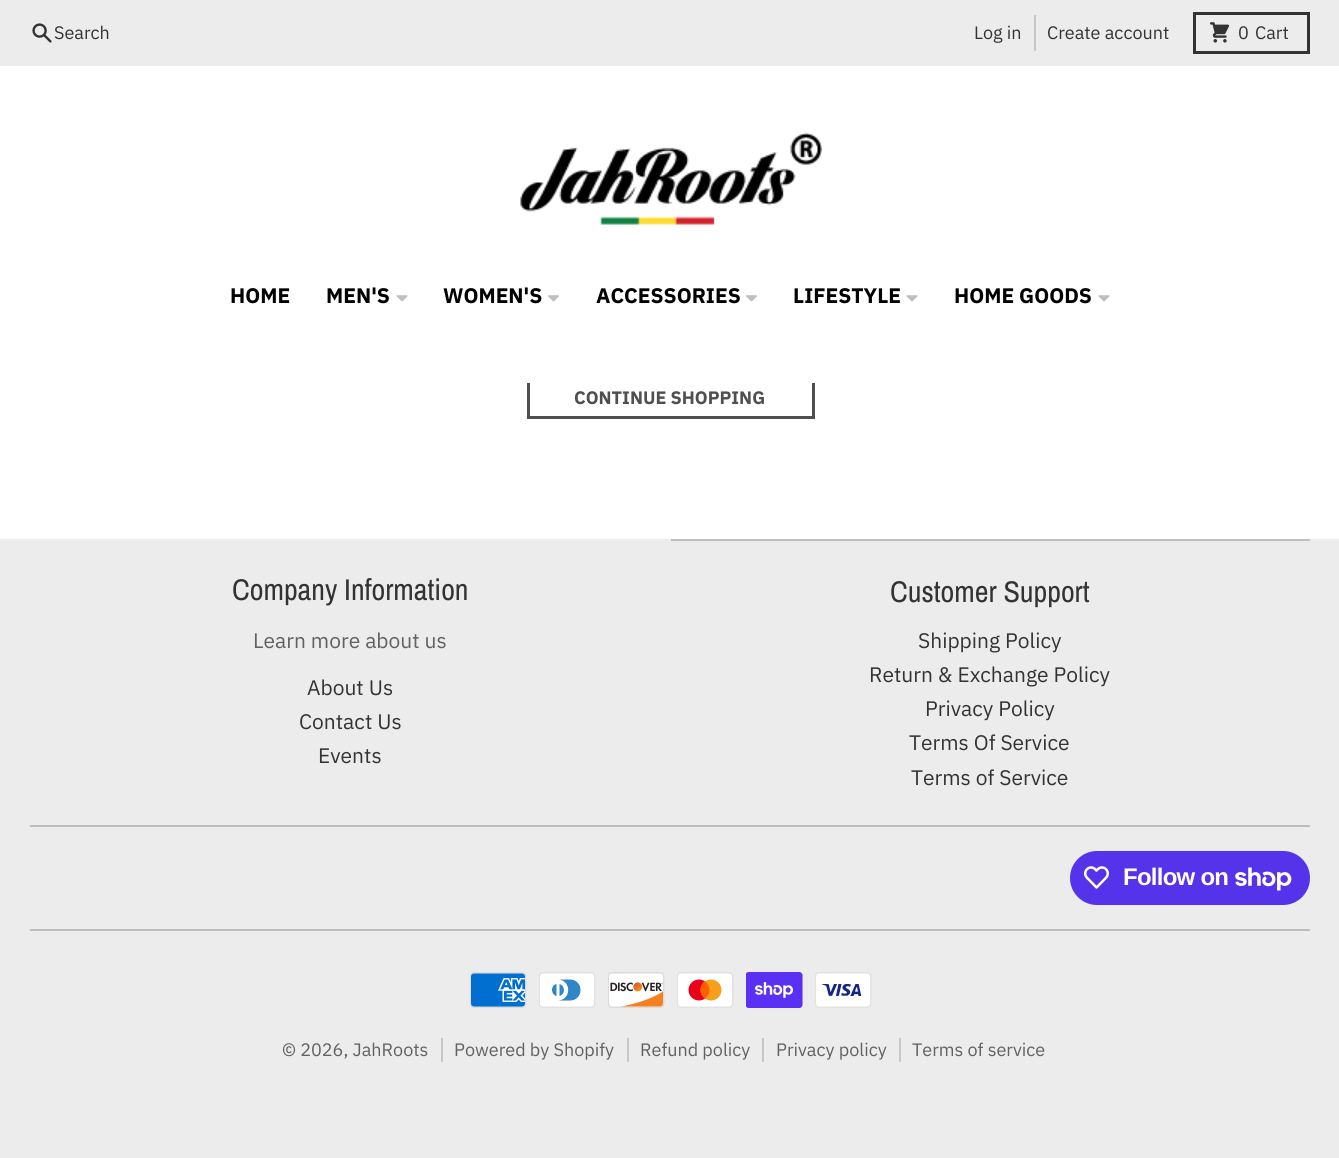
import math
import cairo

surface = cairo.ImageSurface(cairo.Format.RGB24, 1339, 1158)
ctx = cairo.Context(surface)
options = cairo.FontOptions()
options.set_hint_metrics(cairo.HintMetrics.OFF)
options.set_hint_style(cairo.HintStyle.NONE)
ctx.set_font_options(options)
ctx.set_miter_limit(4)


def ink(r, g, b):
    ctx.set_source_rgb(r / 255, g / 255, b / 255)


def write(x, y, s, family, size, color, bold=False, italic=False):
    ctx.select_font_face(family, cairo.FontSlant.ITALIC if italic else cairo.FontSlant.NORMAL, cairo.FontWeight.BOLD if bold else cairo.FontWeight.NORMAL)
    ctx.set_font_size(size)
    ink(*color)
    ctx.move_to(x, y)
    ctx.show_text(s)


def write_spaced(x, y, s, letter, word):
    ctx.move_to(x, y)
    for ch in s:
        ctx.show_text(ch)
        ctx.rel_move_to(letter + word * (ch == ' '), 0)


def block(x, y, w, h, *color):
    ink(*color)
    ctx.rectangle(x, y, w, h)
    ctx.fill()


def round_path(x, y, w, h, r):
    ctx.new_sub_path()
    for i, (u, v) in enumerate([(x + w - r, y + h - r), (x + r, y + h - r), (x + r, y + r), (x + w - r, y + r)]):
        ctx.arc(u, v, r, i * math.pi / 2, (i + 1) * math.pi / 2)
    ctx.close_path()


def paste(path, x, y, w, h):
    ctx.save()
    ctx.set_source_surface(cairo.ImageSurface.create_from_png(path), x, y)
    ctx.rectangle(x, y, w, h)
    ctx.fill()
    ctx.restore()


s1 = dict(family="IBM Plex Sans", size=18, color=(51, 51, 51))
s2 = dict(family="IBM Plex Sans", size=21, color=(0, 0, 0), bold=True)
s3 = dict(family="IBM Plex Sans", size=18, color=(79, 79, 79), bold=True)
s4 = dict(family="Archivo Narrow", size=30, color=(51, 51, 51))
s5 = dict(family="IBM Plex Sans", size=21, color=(97, 97, 97))
s6 = dict(family="IBM Plex Sans", size=21, color=(51, 51, 51))
s7 = dict(family="IBM Plex Sans", size=18, color=(97, 97, 97))

ink(236, 236, 236)
ctx.paint()
paste("pic1.png", 32, 23, 20, 20)
write(54, 39, "Search", **s1)
write(974, 39, "Log in", **s1)
block(1034, 15, 2, 36, 199, 199, 199)
write(1047, 39, "Create account", **s1)
ctx.rectangle(1194.5, 13.5, 114, 39)
ctx.set_line_width(3)
ctx.stroke()
paste("pic2.png", 1209, 22, 21, 21)
write(1238, 39, "0", **s1)
write(1255, 39, "Cart", **s1)
block(0, 383, 1339, 156, 255, 255, 255)
ctx.rectangle(528.5, 378.5, 285, 39)
ink(79, 79, 79)
ctx.stroke()
block(0, 66, 1339, 317, 255, 255, 255)
paste("pic3.png", 520, 132, 302, 93)
write(230, 303, "HOME", **s2)
write(326, 303, "MEN'S", **s2)
paste("pic4.png", 396, 295, 12, 7)
write(443, 303, "WOMEN'S", **s2)
paste("pic5.png", 548, 295, 11, 7)
write(596, 303, "ACCESSORIES", **s2)
paste("pic5.png", 746, 295, 11, 7)
write(793, 303, "LIFESTYLE", **s2)
paste("pic4.png", 906, 295, 12, 7)
write(954, 303, "HOME GOODS", **s2)
paste("pic4.png", 1098, 295, 12, 7)
write(574, 404, "CONTINUE SHOPPING", **s3)
write(232, 600, "Company Information", **s4)
write(253, 648, "Learn more about us", **s5)
write(307, 695, "About Us", **s6)
write(299, 729, "Contact Us", **s6)
write(318, 763, "Events", **s6)
block(671, 539, 639, 2, 190, 190, 190)
write(890, 602, "Customer Support", **s4)
write(918, 648, "Shipping Policy", **s6)
write(869, 682, "Return & Exchange Policy", **s6)
write(925, 716, "Privacy Policy", **s6)
write(909, 750, "Terms Of Service", **s6)
write(911, 785, "Terms of Service", **s6)
block(30, 825, 1280, 2, 190, 190, 190)
ink(84, 51, 235)
round_path(1070, 851, 240, 54, 27)
ctx.fill()
paste("pic6.png", 1084, 866, 25, 23)
ctx.select_font_face("Liberation Sans", cairo.FontSlant.NORMAL, cairo.FontWeight.BOLD)
ctx.set_font_size(24)
ink(255, 255, 255)
write_spaced(1123, 885, "Follow on", -0.75, 0)
paste("pic7.png", 1235, 867, 57, 24)
block(30, 929, 1280, 2, 190, 190, 190)
paste("pic8.png", 470, 972, 57, 36)
paste("pic9.png", 539, 972, 57, 36)
paste("pic10.png", 608, 972, 57, 36)
paste("pic11.png", 677, 972, 57, 36)
paste("pic12.png", 746, 972, 57, 36)
paste("pic13.png", 815, 972, 57, 36)
write(282, 1056, "© 2026, JahRoots", **s7)
block(441, 1038, 2, 24, 199, 199, 199)
write(454, 1056, "Powered by Shopify", **s7)
block(627, 1038, 2, 24, 199, 199, 199)
write(640, 1056, "Refund policy", **s7)
block(762, 1038, 2, 24, 199, 199, 199)
write(776, 1056, "Privacy policy", **s7)
block(899, 1038, 2, 24, 199, 199, 199)
write(912, 1056, "Terms of service", **s7)
surface.write_to_png("screenshot.png")
